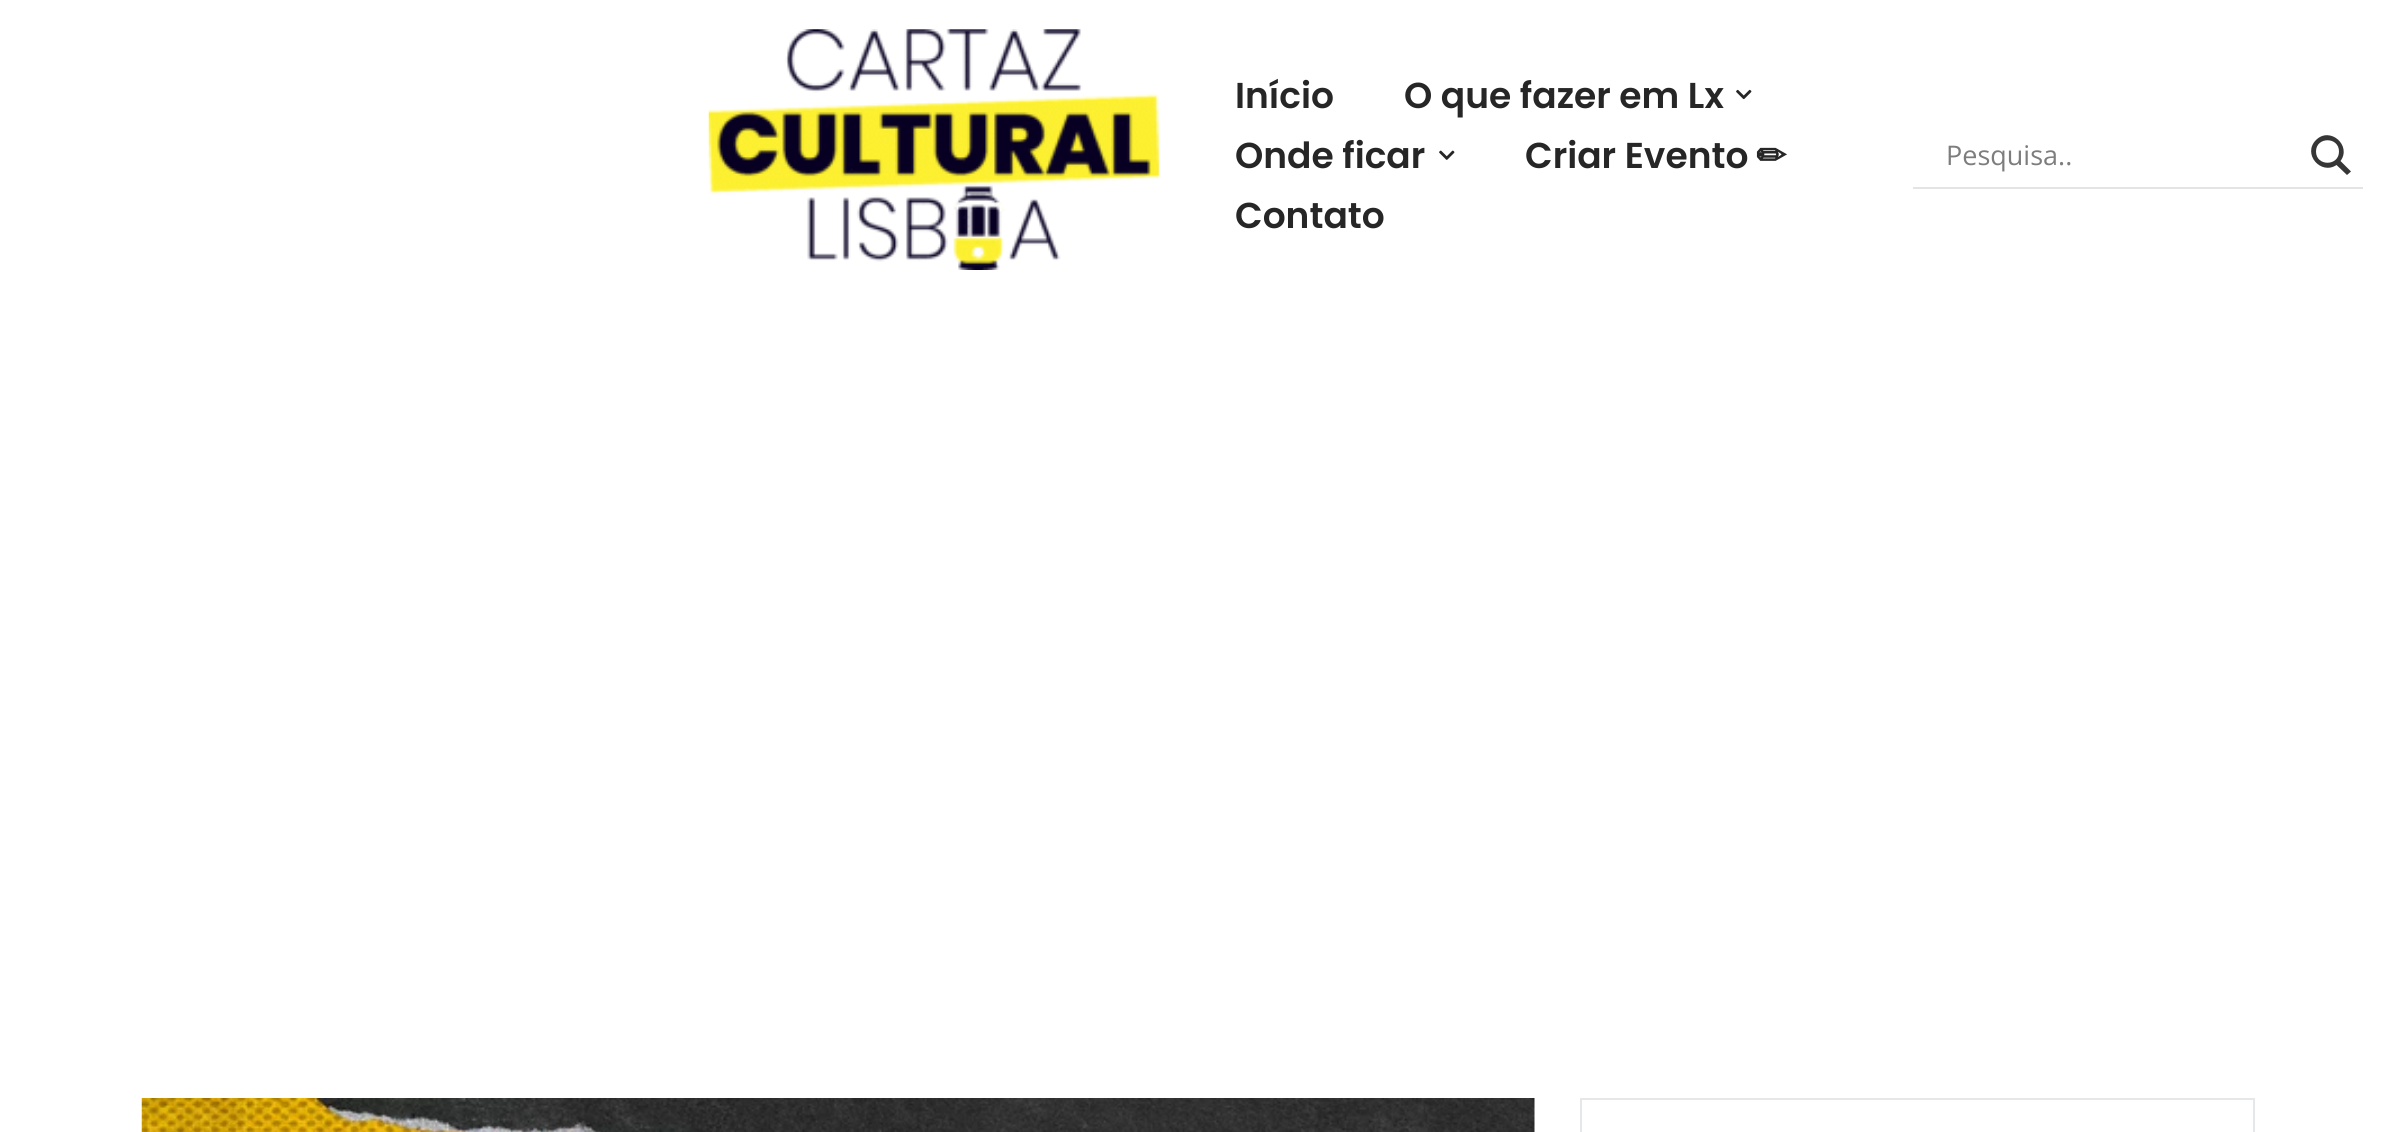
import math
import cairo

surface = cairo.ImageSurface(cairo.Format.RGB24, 2395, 1132)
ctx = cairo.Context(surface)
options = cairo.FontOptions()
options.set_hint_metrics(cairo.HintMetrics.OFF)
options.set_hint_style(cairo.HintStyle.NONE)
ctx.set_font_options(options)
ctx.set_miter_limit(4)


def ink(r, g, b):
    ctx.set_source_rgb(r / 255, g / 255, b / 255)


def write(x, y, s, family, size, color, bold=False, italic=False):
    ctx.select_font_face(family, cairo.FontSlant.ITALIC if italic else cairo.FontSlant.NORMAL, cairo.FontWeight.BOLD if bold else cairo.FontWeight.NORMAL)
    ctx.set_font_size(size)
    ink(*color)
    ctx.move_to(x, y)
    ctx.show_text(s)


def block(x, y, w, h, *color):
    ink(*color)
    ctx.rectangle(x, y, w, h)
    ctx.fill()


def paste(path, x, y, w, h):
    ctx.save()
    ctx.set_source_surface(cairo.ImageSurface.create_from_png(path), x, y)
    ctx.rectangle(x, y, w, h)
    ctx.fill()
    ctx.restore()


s1 = dict(family="Poppins SemiBold", size=36, color=(39, 38, 38))
s2 = dict(family="DejaVu Sans", size=36, color=(39, 38, 38), bold=True)
s3 = dict(family="Open Sans", size=27, color=(125, 125, 125))

ink(255, 255, 255)
ctx.paint()
paste("pic1.png", 708, 29, 451, 241)
write(1235, 108, "Início", **s1)
write(1404, 108, "O que fazer em Lx", **s1)
paste("pic2.png", 1736, 89, 16, 11)
write(1235, 168, "Onde ficar", **s1)
paste("pic3.png", 1439, 150, 16, 10)
write(1525, 168, "Criar Evento", **s1)
write(1756, 168, "✏", **s2)
write(1235, 228, "Contato", **s1)
ink(228, 228, 228)
ctx.new_path()
ctx.move_to(1913, 187)
ctx.line_to(1913, 189)
ctx.line_to(2363, 189)
ctx.line_to(2363, 126)
ctx.line_to(2362, 126)
ctx.line_to(2362, 187)
ctx.close_path()
ctx.fill()
block(2362, 126, 1, 61, 255, 255, 255)
write(1946, 165, "Pesquisa..", **s3)
ink(54, 54, 54)
ctx.new_path()
ctx.move_to(2351, 171.5)
ctx.line_to(2340.5, 161)
ctx.curve_to(2352, 145.5, 2330, 126, 2316, 140)
ctx.curve_to(2302, 154, 2321, 175.5, 2336.5, 165)
ctx.line_to(2347, 175)
ctx.close_path()
ctx.move_to(2316, 151.5)
ctx.curve_to(2316, 136.5, 2339, 136.5, 2339, 151.5)
ctx.curve_to(2339, 166.5, 2316, 166.5, 2316, 151.5)
ctx.close_path()
ctx.fill()
paste("pic4.png", 141, 1098, 1394, 34)
ctx.rectangle(1581, 1099, 673, 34)
ink(230, 231, 232)
ctx.stroke()
surface.write_to_png("screenshot.png")
